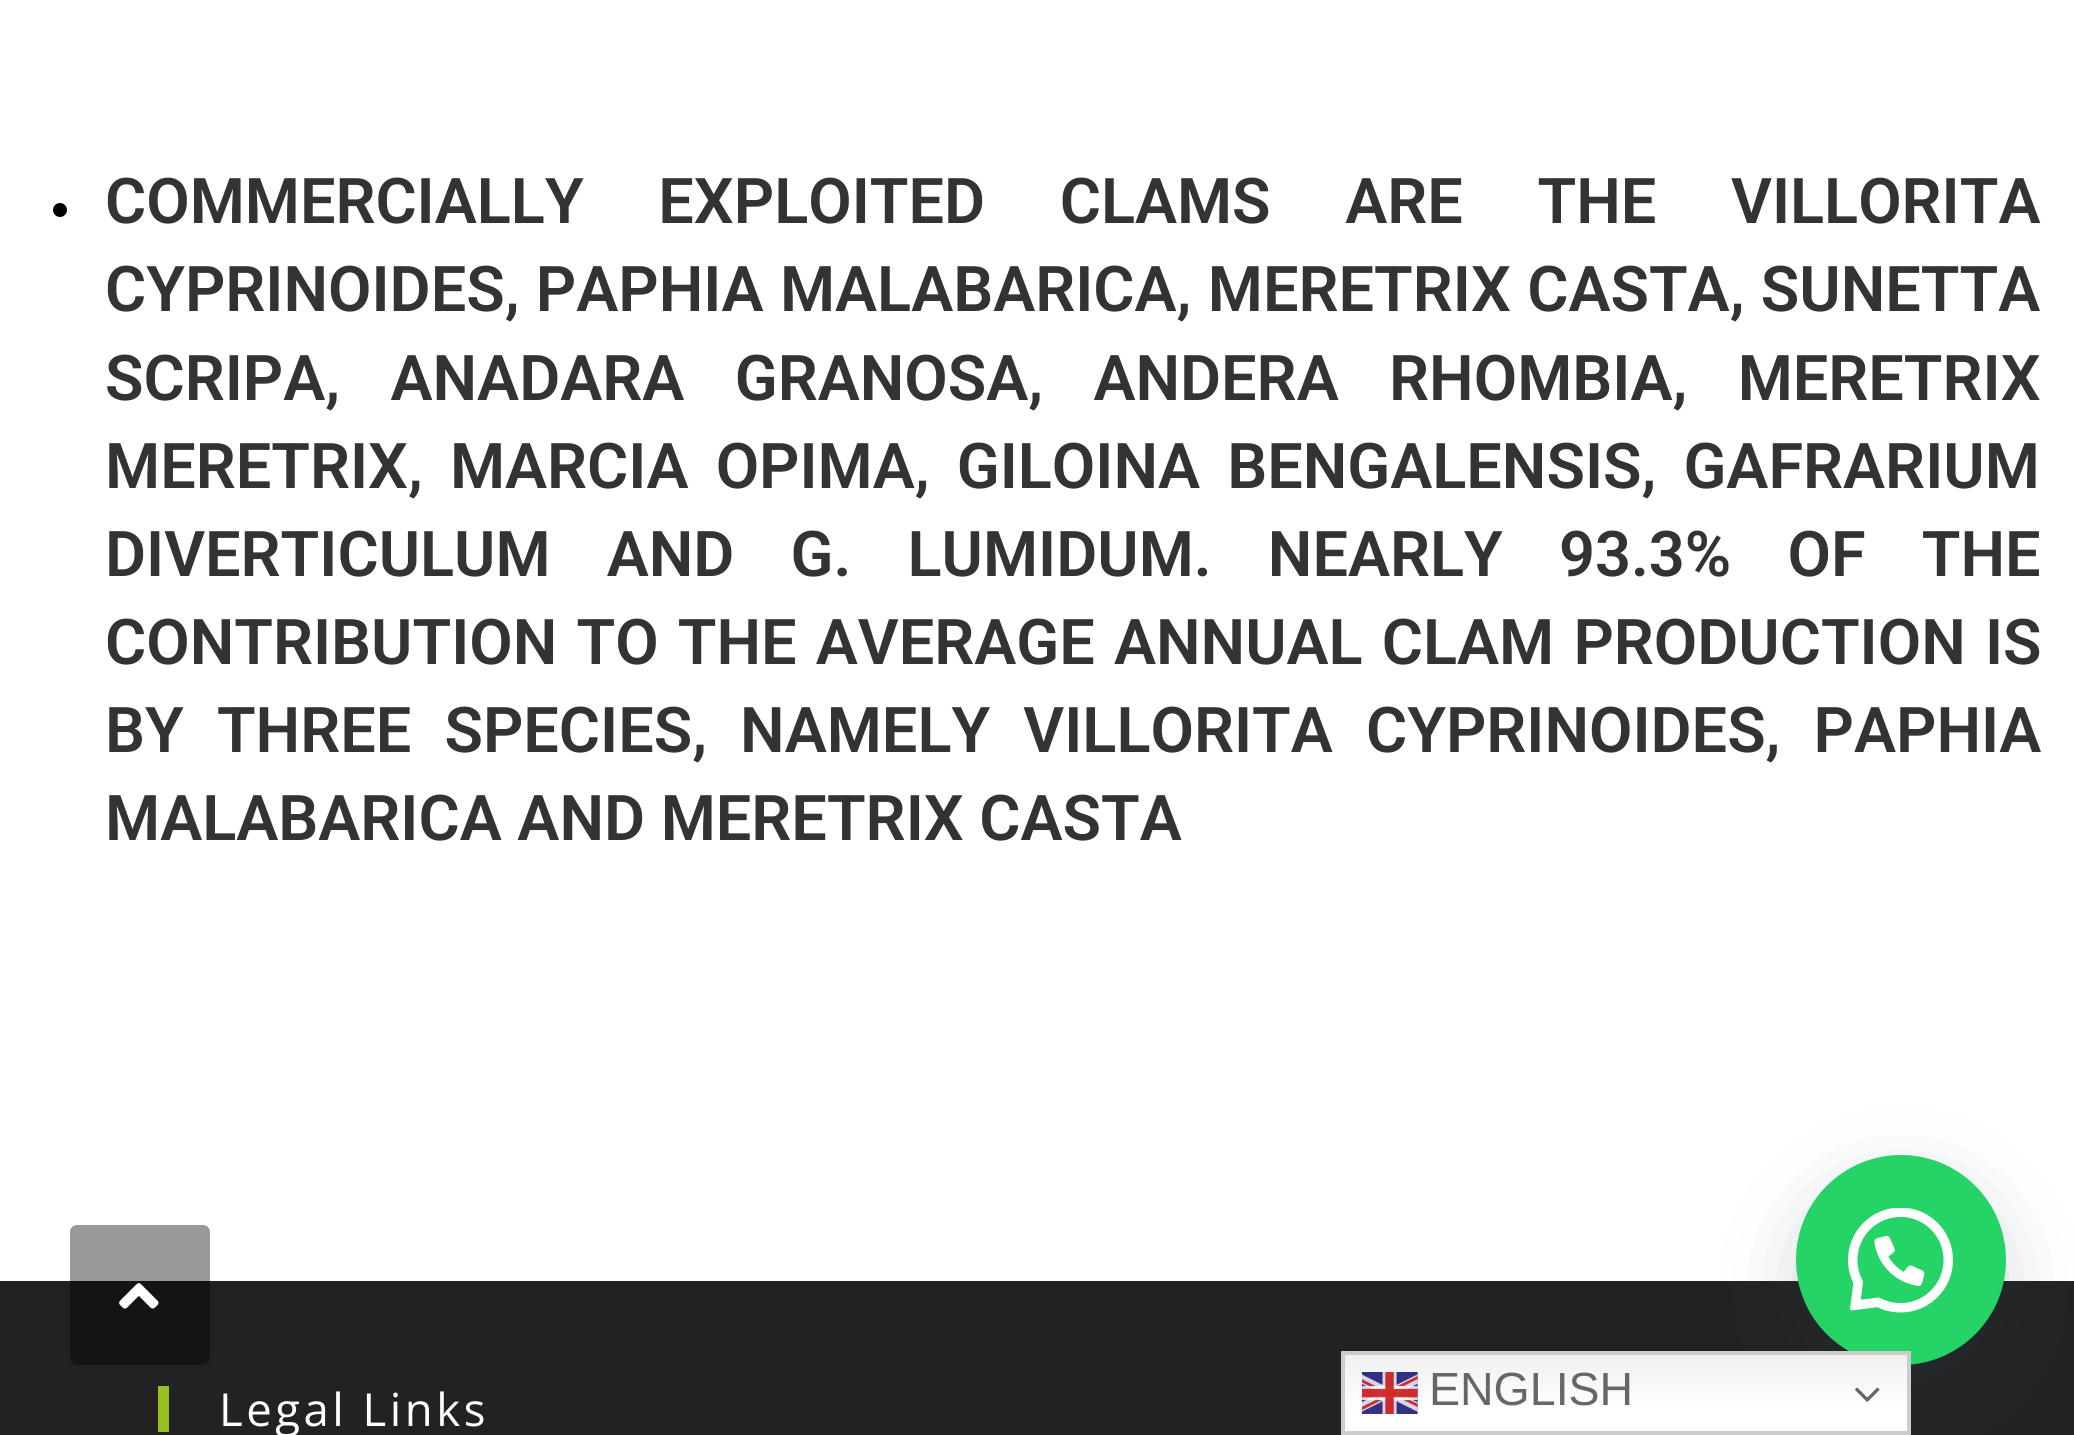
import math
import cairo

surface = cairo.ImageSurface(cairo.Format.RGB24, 2074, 1435)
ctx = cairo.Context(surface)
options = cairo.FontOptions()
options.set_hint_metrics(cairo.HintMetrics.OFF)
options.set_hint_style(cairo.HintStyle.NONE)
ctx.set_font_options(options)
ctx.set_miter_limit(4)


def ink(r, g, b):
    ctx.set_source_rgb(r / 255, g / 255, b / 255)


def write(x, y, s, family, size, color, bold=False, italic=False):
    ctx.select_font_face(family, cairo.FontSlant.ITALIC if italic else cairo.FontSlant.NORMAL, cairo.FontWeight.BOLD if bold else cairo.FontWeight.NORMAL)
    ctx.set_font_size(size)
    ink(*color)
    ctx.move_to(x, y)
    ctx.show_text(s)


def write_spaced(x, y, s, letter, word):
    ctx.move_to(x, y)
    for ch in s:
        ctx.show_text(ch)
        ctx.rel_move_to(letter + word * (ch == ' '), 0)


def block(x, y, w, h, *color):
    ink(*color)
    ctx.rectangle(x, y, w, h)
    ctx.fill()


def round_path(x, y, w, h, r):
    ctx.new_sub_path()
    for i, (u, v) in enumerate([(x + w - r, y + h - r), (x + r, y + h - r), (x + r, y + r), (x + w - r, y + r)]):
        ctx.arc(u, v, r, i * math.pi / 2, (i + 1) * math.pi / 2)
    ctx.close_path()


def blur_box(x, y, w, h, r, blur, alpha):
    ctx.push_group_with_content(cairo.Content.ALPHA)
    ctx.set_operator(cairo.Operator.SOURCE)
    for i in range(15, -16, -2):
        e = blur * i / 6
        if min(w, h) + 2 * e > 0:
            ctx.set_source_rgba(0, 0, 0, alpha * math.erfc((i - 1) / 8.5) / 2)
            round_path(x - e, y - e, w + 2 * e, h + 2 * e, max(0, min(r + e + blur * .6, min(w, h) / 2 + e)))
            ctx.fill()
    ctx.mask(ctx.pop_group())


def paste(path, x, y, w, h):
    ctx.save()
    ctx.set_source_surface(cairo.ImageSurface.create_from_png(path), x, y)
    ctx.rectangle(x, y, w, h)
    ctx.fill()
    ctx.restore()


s1 = dict(family="Roboto SemiBold", size=63, color=(51, 51, 51))
s2 = dict(family="Liberation Sans", size=46.5, color=(102, 102, 102))

ink(255, 255, 255)
ctx.paint()
ink(1, 3, 3)
ctx.arc(60, 210, 7, 0, 2 * math.pi)
ctx.fill()
ctx.select_font_face("Roboto SemiBold")
ctx.set_font_size(63)
ink(51, 51, 51)
write_spaced(105, 223, "COMMERCIALLY EXPLOITED CLAMS ARE THE VILLORITA", 0, 59)
write_spaced(105, 311, "CYPRINOIDES, PAPHIA MALABARICA, MERETRIX CASTA, SUNETTA", 0, 0.75)
write_spaced(105, 400, "SCRIPA, ANADARA GRANOSA, ANDERA RHOMBIA, MERETRIX", 0, 34.75)
write_spaced(105, 488, "MERETRIX, MARCIA OPIMA, GILOINA BENGALENSIS, GAFRARIUM", 0, 11.5)
write_spaced(105, 576, "DIVERTICULUM AND G. LUMIDUM. NEARLY 93.3% OF THE", 0, 40.5)
write_spaced(105, 664, "CONTRIBUTION TO THE AVERAGE ANNUAL CLAM PRODUCTION IS", 0, 3.5)
write_spaced(105, 752, "BY THREE SPECIES, NAMELY VILLORITA CYPRINOIDES, PAPHIA", 0, 17.5)
write(105, 840, "MALABARICA AND MERETRIX CASTA", **s1)
block(0, 1281, 2074, 154, 34, 34, 34)
block(158, 1386, 11, 46, 151, 192, 34)
ctx.select_font_face("Open Sans")
ctx.set_font_size(45.5)
ink(255, 255, 255)
write_spaced(219, 1426, "Legal Links", 3.5, 0)
ctx.set_source_rgba(0, 0, 0, 0.4)
round_path(70, 1225, 140, 140, 7)
ctx.fill()
paste("pic1.png", 119, 1283, 40, 26)
ink(45, 62, 79)
blur_box(1813, 1201, 175, 175, 87.5, 44, 0.3)
ink(37, 211, 102)
ctx.arc(1901, 1260, 105, 0, 2 * math.pi)
ctx.fill()
paste("pic2.png", 1848, 1208, 105, 105)
gradient = cairo.LinearGradient(1626, 1351, 1626, 1435)
gradient.add_color_stop_rgba(0, 0.937, 0.937, 0.937, 1)
gradient.add_color_stop_rgba(0.7, 1, 1, 1, 1)
ctx.set_source(gradient)
ctx.rectangle(1345, 1355, 562, 76)
ctx.fill()
ctx.rectangle(1343, 1353, 566, 80)
ink(204, 204, 204)
ctx.set_line_width(4)
ctx.stroke()
paste("pic3.png", 1362, 1372, 56, 42)
write(1429, 1405, "ENGLISH", **s2)
paste("pic4.png", 1855, 1387, 25, 15)
surface.write_to_png("screenshot.png")
